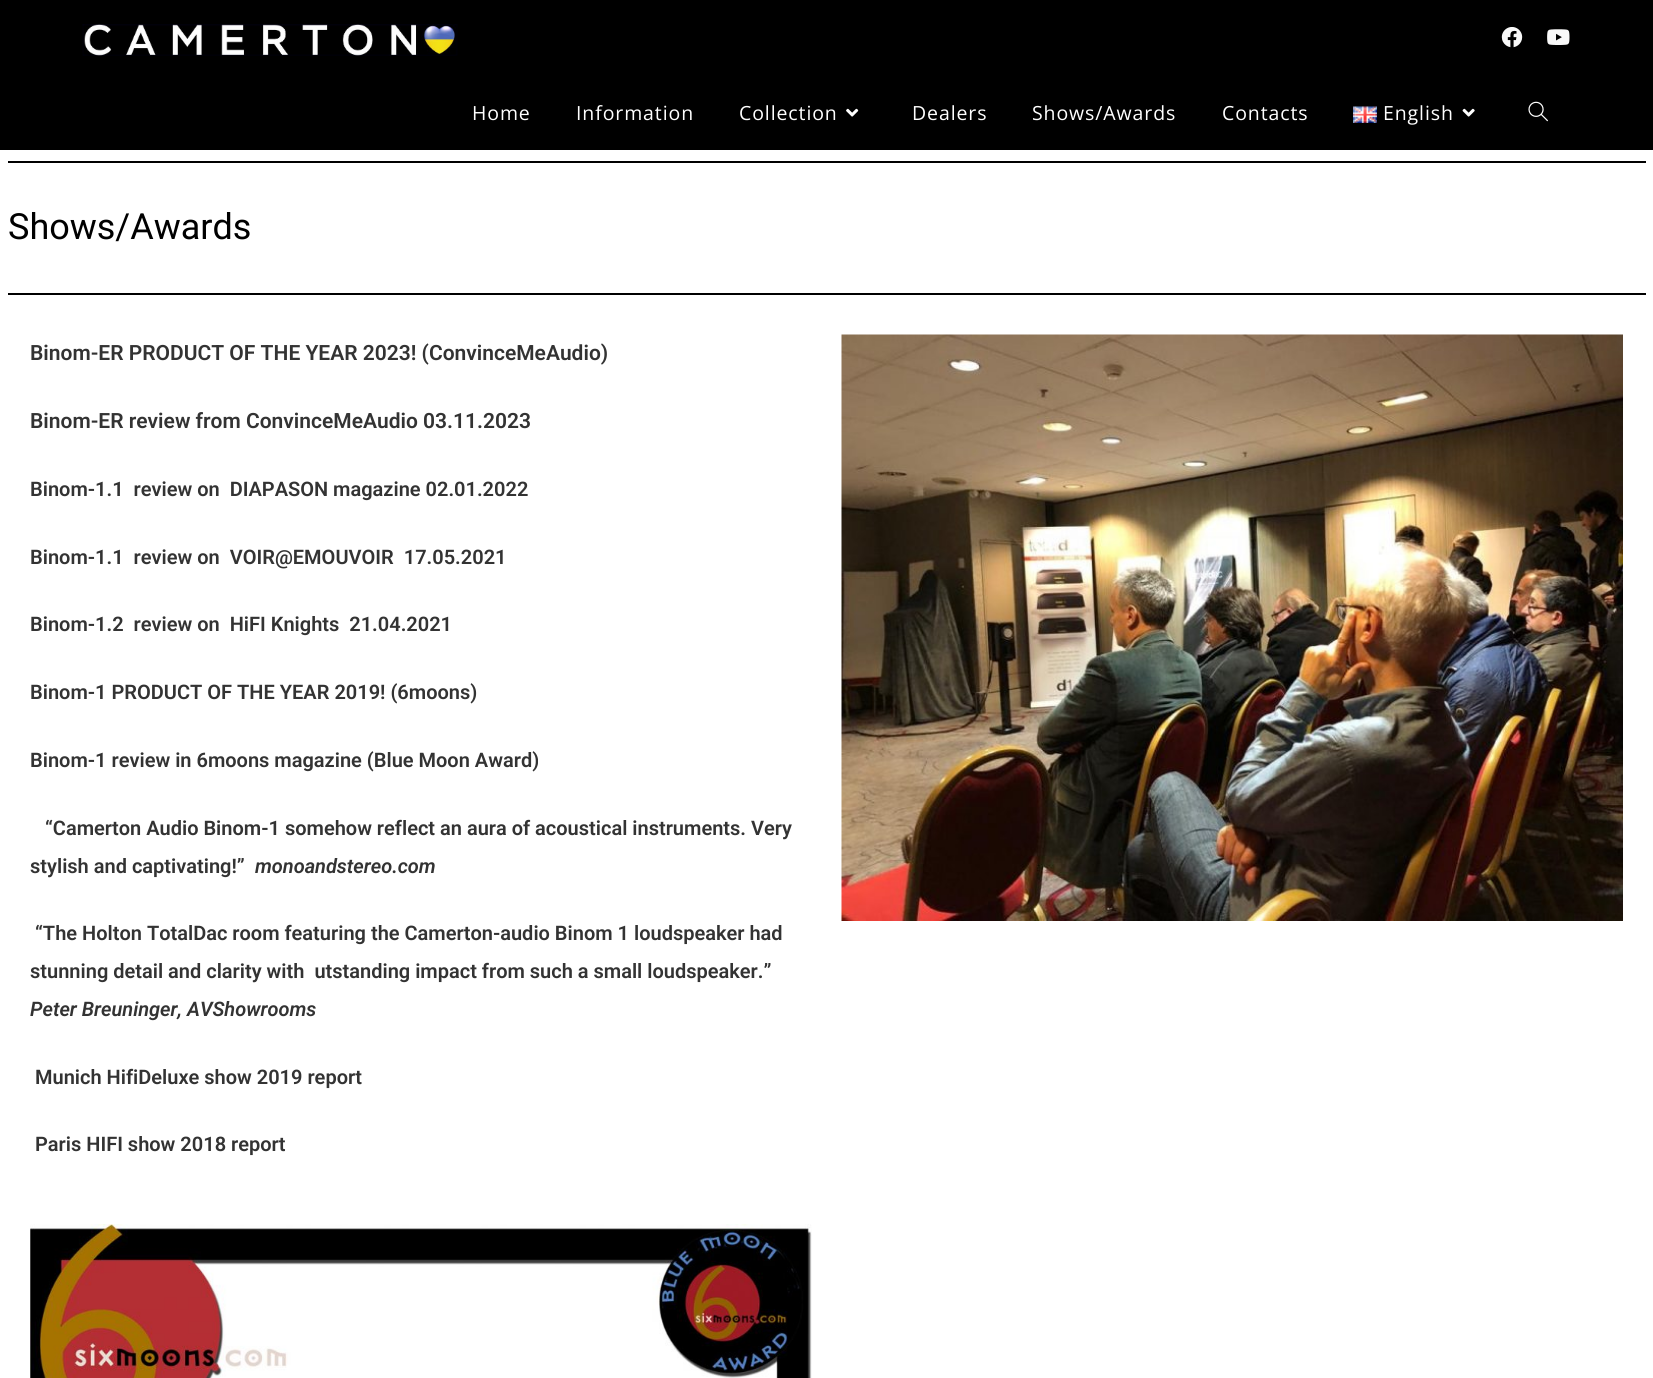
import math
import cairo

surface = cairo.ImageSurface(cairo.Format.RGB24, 1653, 1378)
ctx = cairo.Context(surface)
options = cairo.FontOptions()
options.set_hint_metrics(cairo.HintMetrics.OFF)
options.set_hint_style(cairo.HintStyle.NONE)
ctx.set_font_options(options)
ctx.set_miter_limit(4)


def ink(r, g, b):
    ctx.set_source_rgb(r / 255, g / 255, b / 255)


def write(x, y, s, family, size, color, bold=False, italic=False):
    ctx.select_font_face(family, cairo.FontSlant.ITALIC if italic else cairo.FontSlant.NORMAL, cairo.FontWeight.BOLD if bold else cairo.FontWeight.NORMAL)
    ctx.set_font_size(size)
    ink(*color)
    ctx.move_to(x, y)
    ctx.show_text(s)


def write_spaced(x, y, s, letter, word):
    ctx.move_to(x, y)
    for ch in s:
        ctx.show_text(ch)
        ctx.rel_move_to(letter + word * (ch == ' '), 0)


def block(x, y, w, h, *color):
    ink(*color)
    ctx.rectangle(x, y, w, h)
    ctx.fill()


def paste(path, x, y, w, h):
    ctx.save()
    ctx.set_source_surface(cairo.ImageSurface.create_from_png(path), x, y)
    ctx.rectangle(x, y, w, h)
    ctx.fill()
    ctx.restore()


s1 = dict(family="Roboto", size=36, color=(0, 0, 0))
s2 = dict(family="Roboto SemiBold", size=21, color=(51, 51, 51))
s3 = dict(family="Roboto SemiBold", size=20, color=(51, 51, 51))
s4 = dict(family="Roboto SemiBold", size=20, color=(51, 51, 51), italic=True)

ink(255, 255, 255)
ctx.paint()
block(0, 0, 1653, 150, 0, 0, 0)
paste("pic1.png", 82, 24, 376, 32)
paste("pic2.png", 1501, 27, 22, 21)
paste("pic3.png", 1547, 29, 23, 16)
ctx.select_font_face("Open Sans")
ctx.set_font_size(19.5)
ink(255, 255, 255)
write_spaced(472, 120, "Home", 0.9, 0)
write_spaced(576, 120, "Information", 0.9, 0)
write_spaced(739, 120, "Collection", 0.9, 0)
paste("pic4.png", 846, 108, 13, 9)
write_spaced(912, 120, "Dealers", 0.9, 0)
write_spaced(1032, 120, "Shows/Awards", 0.9, 0)
write_spaced(1222, 120, "Contacts", 0.9, 0)
paste("pic5.png", 1353, 106, 24, 17)
write_spaced(1383, 120, "English", 0.9, 0)
paste("pic6.png", 1462, 108, 13, 9)
paste("pic7.png", 1528, 101, 20, 21)
block(8, 161, 1638, 2, 0, 0, 0)
write(8, 239, "Shows/Awards", **s1)
block(8, 293, 1638, 2, 0, 0, 0)
write(30, 360, "Binom-ER PRODUCT OF THE YEAR 2023! (ConvinceMeAudio)", **s2)
write(30, 428, "Binom-ER review from ConvinceMeAudio 03.11.2023", **s2)
write(30, 496, "Binom-1.1  review on  DIAPASON magazine 02.01.2022", **s3)
write(30, 564, "Binom-1.1  review on  VOIR@EMOUVOIR  17.05.2021", **s3)
write(30, 631, "Binom-1.2  review on  HiFI Knights  21.04.2021", **s3)
write(30, 699, "Binom-1 PRODUCT OF THE YEAR 2019! (6moons)", **s3)
write(30, 767, "Binom-1 review in 6moons magazine (Blue Moon Award)", **s3)
write(45, 835, "“Camerton Audio Binom-1 somehow reflect an aura of acoustical instruments. Very", **s3)
write(30, 873, "stylish and captivating!”", **s3)
write(255, 873, "monoandstereo.com", **s4)
write(35, 940, "“The Holton TotalDac room featuring the Camerton-audio Binom 1 loudspeaker had", **s3)
write(30, 978, "stunning detail and clarity with  utstanding impact from such a small loudspeaker.”", **s3)
write(30, 1016, "Peter Breuninger, AVShowrooms", **s4)
write(35, 1084, "Munich HifiDeluxe show 2019 report", **s3)
write(35, 1151, "Paris HIFI show 2018 report", **s3)
paste("pic8.png", 30, 1224, 782, 154)
paste("pic9.png", 841, 334, 782, 587)
surface.write_to_png("screenshot.png")
